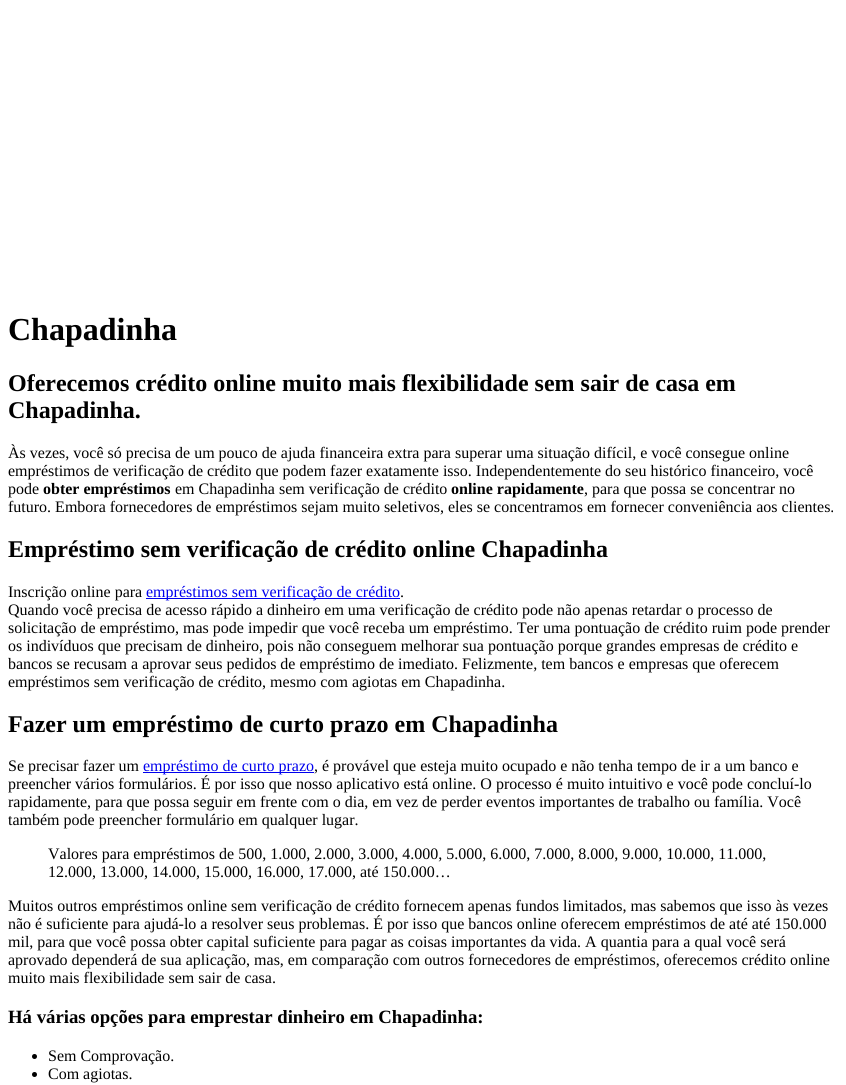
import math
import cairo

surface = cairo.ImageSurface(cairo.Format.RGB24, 846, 1085)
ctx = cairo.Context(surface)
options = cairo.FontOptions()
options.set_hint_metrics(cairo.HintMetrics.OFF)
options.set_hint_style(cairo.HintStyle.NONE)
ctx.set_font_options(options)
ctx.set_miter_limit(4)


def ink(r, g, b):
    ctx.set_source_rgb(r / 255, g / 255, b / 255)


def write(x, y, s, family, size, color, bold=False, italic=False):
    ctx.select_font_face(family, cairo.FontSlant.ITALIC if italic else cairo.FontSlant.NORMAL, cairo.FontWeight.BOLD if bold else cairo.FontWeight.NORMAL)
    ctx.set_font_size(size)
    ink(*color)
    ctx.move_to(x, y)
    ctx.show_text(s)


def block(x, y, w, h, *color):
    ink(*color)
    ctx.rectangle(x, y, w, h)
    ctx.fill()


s1 = dict(family="Liberation Serif", size=32, color=(0, 0, 0), bold=True)
s2 = dict(family="Liberation Serif", size=24, color=(0, 0, 0), bold=True)
s3 = dict(family="Liberation Serif", size=16, color=(0, 0, 0))
s4 = dict(family="Liberation Serif", size=16, color=(0, 0, 0), bold=True)
s5 = dict(family="Liberation Serif", size=16, color=(0, 0, 238))
s6 = dict(family="Liberation Serif", size=18.75, color=(0, 0, 0), bold=True)

ink(255, 255, 255)
ctx.paint()
write(8, 340, "Chapadinha", **s1)
write(8, 391, "Oferecemos crédito online muito mais flexibilidade sem sair de casa em", **s2)
write(8, 418, "Chapadinha.", **s2)
write(8, 458, "Às vezes, você só precisa de um pouco de ajuda financeira extra para superar uma situação difícil, e você consegue online", **s3)
write(8, 476, "empréstimos de verificação de crédito que podem fazer exatamente isso. Independentemente do seu histórico financeiro, você", **s3)
write(8, 494, "pode", **s3)
write(43, 494, "obter empréstimos", **s4)
write(175, 494, "em Chapadinha sem verificação de crédito", **s3)
write(451, 494, "online rapidamente", **s4)
write(584, 494, ", para que possa se concentrar no", **s3)
write(8, 512, "futuro. Embora fornecedores de empréstimos sejam muito seletivos, eles se concentramos em fornecer conveniência aos clientes.", **s3)
write(8, 557, "Empréstimo sem verificação de crédito online Chapadinha", **s2)
write(8, 597, "Inscrição online para", **s3)
block(146, 598, 254, 1, 0, 0, 238)
write(146, 597, "empréstimos sem verificação de crédito", **s5)
write(400, 597, ".", **s3)
write(8, 615, "Quando você precisa de acesso rápido a dinheiro em uma verificação de crédito pode não apenas retardar o processo de", **s3)
write(8, 633, "solicitação de empréstimo, mas pode impedir que você receba um empréstimo. Ter uma pontuação de crédito ruim pode prender", **s3)
write(8, 651, "os indivíduos que precisam de dinheiro, pois não conseguem melhorar sua pontuação porque grandes empresas de crédito e", **s3)
write(8, 669, "bancos se recusam a aprovar seus pedidos de empréstimo de imediato. Felizmente, tem bancos e empresas que oferecem", **s3)
write(8, 687, "empréstimos sem verificação de crédito, mesmo com agiotas em Chapadinha.", **s3)
write(8, 732, "Fazer um empréstimo de curto prazo em Chapadinha", **s2)
write(8, 771, "Se precisar fazer um", **s3)
block(143, 772, 171, 1, 0, 0, 238)
write(143, 771, "empréstimo de curto prazo", **s5)
write(314, 771, ", é provável que esteja muito ocupado e não tenha tempo de ir a um banco e", **s3)
write(8, 789, "preencher vários formulários. É por isso que nosso aplicativo está online. O processo é muito intuitivo e você pode concluí-lo", **s3)
write(8, 807, "rapidamente, para que possa seguir em frente com o dia, em vez de perder eventos importantes de trabalho ou família. Você", **s3)
write(8, 825, "também pode preencher formulário em qualquer lugar.", **s3)
write(48, 859, "Valores para empréstimos de 500, 1.000, 2.000, 3.000, 4.000, 5.000, 6.000, 7.000, 8.000, 9.000, 10.000, 11.000,", **s3)
write(48, 877, "12.000, 13.000, 14.000, 15.000, 16.000, 17.000, até 150.000…", **s3)
write(8, 911, "Muitos outros empréstimos online sem verificação de crédito fornecem apenas fundos limitados, mas sabemos que isso às vezes", **s3)
write(8, 929, "não é suficiente para ajudá-lo a resolver seus problemas. É por isso que bancos online oferecem empréstimos de até até 150.000", **s3)
write(8, 947, "mil, para que você possa obter capital suficiente para pagar as coisas importantes da vida. A quantia para a qual você será", **s3)
write(8, 965, "aprovado dependerá de sua aplicação, mas, em comparação com outros fornecedores de empréstimos, oferecemos crédito online", **s3)
write(8, 983, "muito mais flexibilidade sem sair de casa.", **s3)
write(8, 1023, "Há várias opções para emprestar dinheiro em Chapadinha:", **s6)
ctx.new_path()
ctx.arc(34.5, 1056.5, 2.5, 0, 2 * math.pi)
ctx.fill()
write(48, 1061, "Sem Comprovação.", **s3)
ctx.new_path()
ctx.arc(34.5, 1074.5, 2.5, 0, 2 * math.pi)
ctx.fill()
write(48, 1079, "Com agiotas.", **s3)
surface.write_to_png("screenshot.png")
